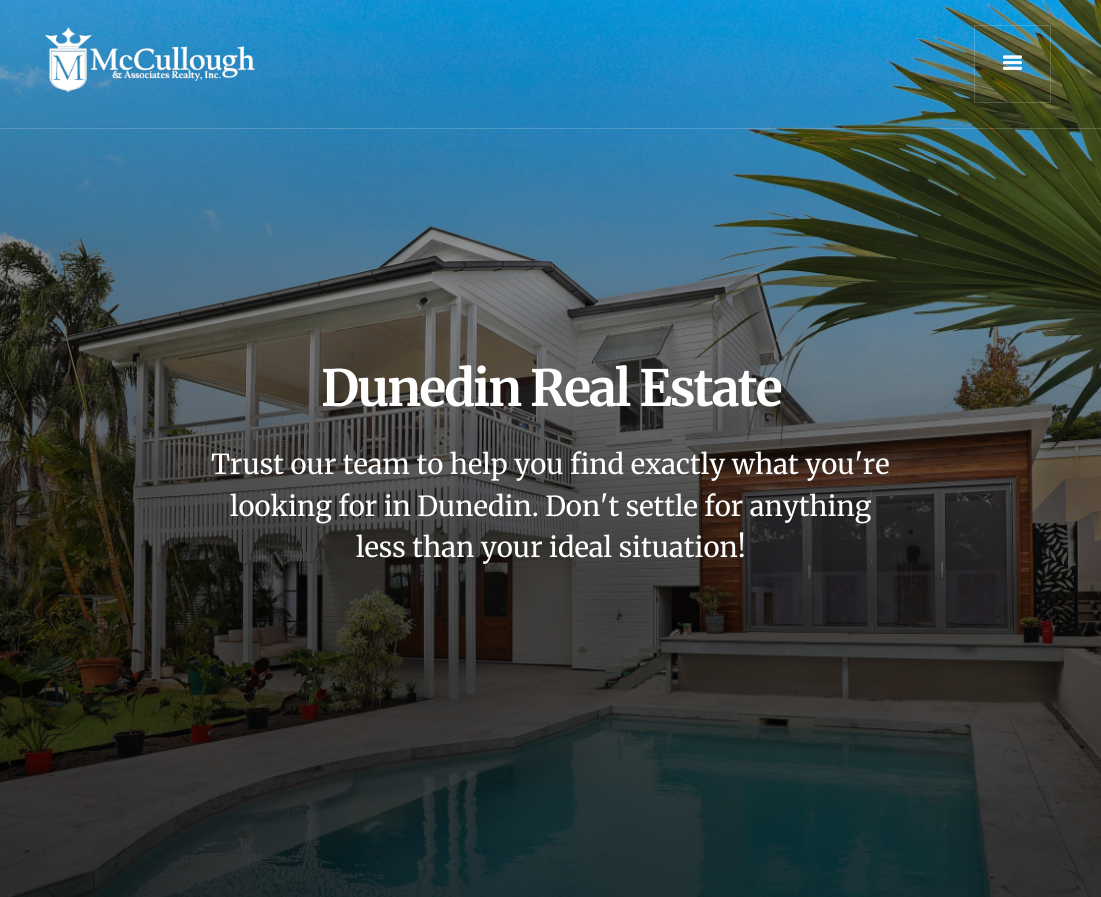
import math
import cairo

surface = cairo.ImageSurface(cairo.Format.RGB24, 1101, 897)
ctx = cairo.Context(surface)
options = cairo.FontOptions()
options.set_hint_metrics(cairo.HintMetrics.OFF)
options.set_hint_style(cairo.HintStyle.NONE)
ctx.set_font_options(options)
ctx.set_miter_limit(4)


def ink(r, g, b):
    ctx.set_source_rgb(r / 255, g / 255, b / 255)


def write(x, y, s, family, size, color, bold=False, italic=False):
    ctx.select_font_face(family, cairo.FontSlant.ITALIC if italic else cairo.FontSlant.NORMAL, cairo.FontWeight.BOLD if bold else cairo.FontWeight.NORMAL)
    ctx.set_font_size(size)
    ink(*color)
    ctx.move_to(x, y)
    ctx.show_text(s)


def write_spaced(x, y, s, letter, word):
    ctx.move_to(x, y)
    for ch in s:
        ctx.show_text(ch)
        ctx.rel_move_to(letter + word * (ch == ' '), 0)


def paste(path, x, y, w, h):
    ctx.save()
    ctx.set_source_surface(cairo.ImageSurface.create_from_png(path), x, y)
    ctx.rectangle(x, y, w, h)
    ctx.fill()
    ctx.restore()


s1 = dict(family="Merriweather", size=27.5, color=(255, 255, 255))

ink(255, 255, 255)
ctx.paint()
paste("pic3.png", 0, 0, 1101, 897)
ctx.set_source_rgba(1, 1, 1, 0.1)
ctx.rectangle(0, 128, 1101, 1)
ctx.fill()
paste("pic1.png", 45, 27, 210, 66)
ctx.rectangle(974.5, 25.5, 76, 77)
ctx.set_line_width(1)
ctx.stroke()
paste("pic2.png", 1003, 55, 19, 15)
ctx.rectangle(0, 128, 1101, 1)
ctx.fill()
paste("pic4.png", 45, 27, 210, 66)
ctx.rectangle(974.5, 25.5, 76, 77)
ctx.stroke()
paste("pic5.png", 1003, 55, 19, 15)
ctx.select_font_face("Merriweather", cairo.FontSlant.NORMAL, cairo.FontWeight.BOLD)
ctx.set_font_size(50)
ink(255, 255, 255)
write_spaced(321, 406, "Dunedin Real Estate", -2, 0)
write(211, 474, "Trust our team to help you find exactly what you're", **s1)
write(230, 516, "looking for in Dunedin. Don't settle for anything", **s1)
write(356, 557, "less than your ideal situation!", **s1)
surface.write_to_png("screenshot.png")
